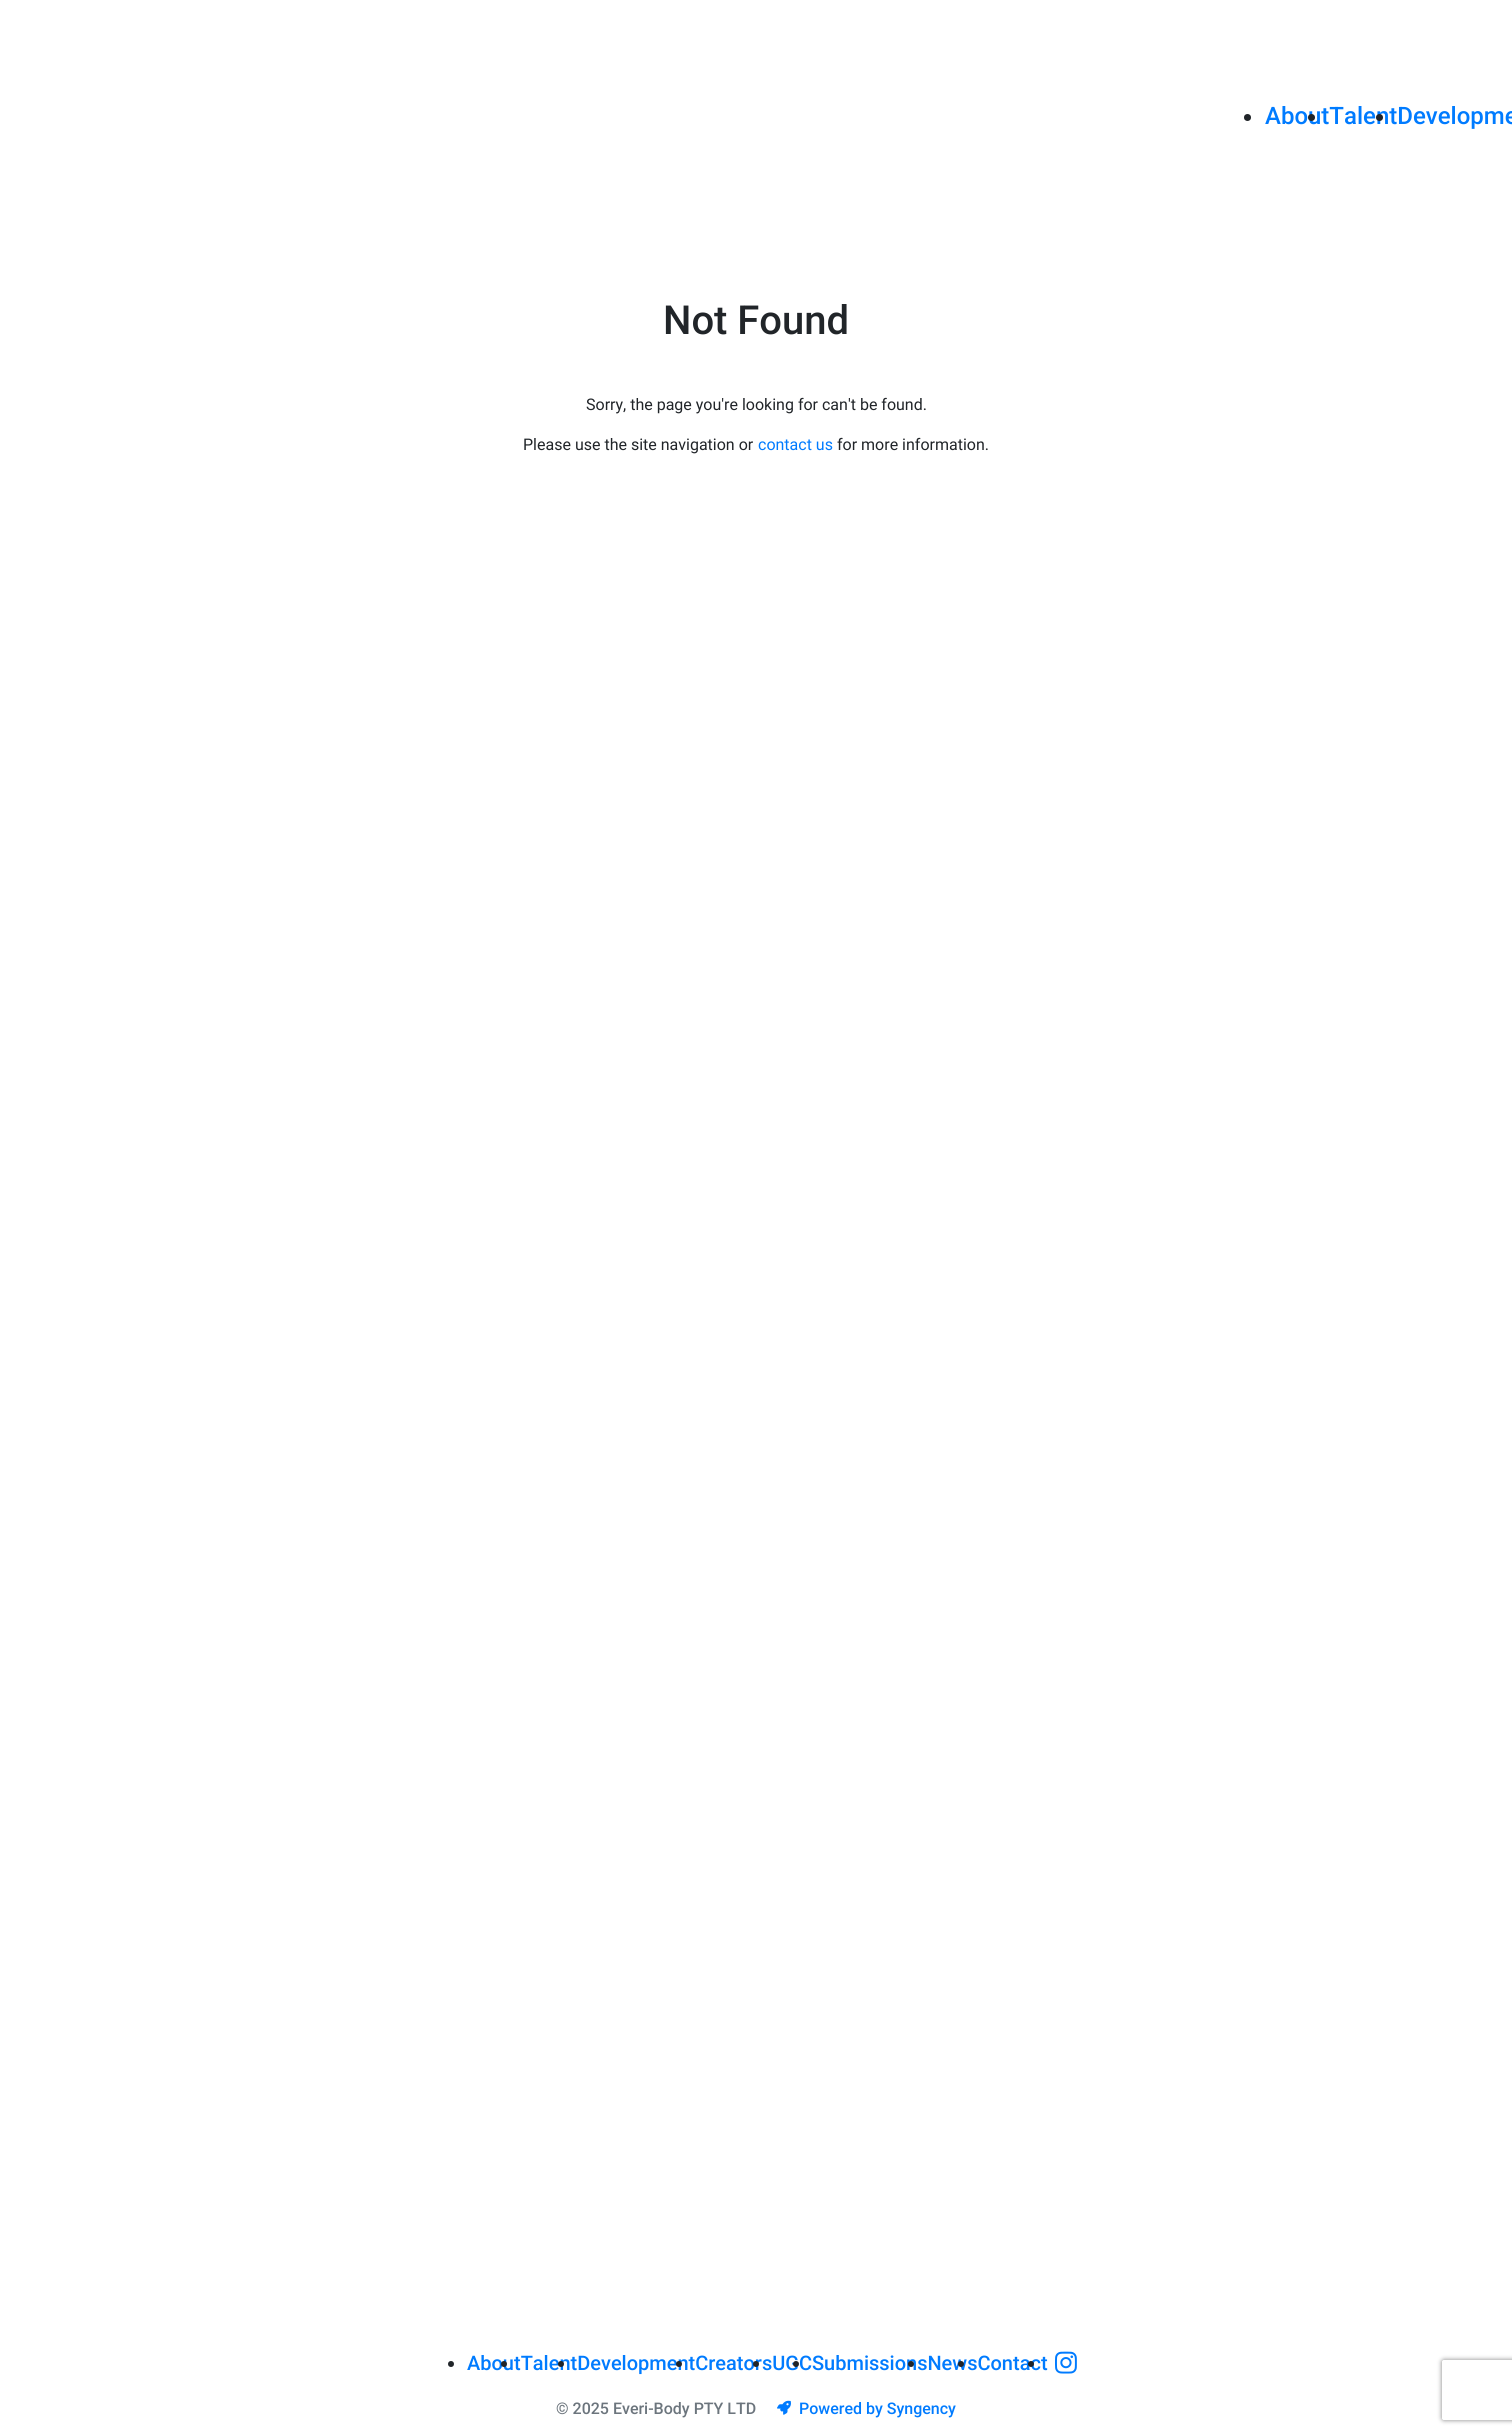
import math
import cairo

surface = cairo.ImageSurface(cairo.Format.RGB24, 1512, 2434)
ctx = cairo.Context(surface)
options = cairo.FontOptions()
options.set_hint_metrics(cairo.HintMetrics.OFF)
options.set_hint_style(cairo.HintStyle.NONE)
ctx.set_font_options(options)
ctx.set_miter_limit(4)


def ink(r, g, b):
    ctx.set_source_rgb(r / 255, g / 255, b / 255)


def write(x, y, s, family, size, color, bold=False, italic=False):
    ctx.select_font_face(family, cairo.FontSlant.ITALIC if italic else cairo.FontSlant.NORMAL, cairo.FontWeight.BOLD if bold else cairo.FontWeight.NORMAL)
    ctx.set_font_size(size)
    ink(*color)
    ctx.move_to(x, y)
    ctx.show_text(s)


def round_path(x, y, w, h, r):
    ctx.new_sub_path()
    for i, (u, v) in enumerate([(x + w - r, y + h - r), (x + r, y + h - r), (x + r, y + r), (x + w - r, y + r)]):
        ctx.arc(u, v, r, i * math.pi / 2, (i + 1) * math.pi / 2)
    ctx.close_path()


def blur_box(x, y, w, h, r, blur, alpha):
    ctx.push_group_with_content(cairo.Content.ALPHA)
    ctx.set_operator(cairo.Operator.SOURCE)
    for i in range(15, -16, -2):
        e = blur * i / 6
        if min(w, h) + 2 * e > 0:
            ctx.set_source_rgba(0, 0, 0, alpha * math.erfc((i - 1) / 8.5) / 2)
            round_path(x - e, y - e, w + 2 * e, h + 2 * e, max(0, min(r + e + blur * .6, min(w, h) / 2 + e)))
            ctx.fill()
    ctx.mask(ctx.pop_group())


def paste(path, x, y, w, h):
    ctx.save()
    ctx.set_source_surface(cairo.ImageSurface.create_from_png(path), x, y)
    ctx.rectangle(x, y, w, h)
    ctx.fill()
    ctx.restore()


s1 = dict(family="Roboto Medium", size=24, color=(0, 123, 255))
s2 = dict(family="Roboto Medium", size=40, color=(33, 37, 41))
s3 = dict(family="Roboto", size=16, color=(33, 37, 41))
s4 = dict(family="Roboto", size=16, color=(0, 123, 255))
s5 = dict(family="Roboto Medium", size=20, color=(0, 123, 255))
s6 = dict(family="Roboto Medium", size=16, color=(108, 117, 125))
s7 = dict(family="Roboto Medium", size=16, color=(0, 123, 255))

ink(255, 255, 255)
ctx.paint()
ink(33, 37, 41)
ctx.arc(1247.5, 117.5, 3.5, 0, 2 * math.pi)
ctx.fill()
write(1265, 124, "AboutTalentDevelopme", **s1)
ink(33, 37, 41)
ctx.new_path()
ctx.arc(1311.5, 117.5, 3.5, 0, 2 * math.pi)
ctx.fill()
ctx.arc(1379.5, 117.5, 3.5, 0, 2 * math.pi)
ctx.fill()
write(663, 334, "Not Found", **s2)
write(586, 410, "Sorry, the page you're looking for can't be found.", **s3)
write(523, 450, "Please use the site navigation or", **s3)
write(758, 450, "contact us", **s4)
write(837, 450, "for more information.", **s3)
ctx.new_path()
ctx.arc(451, 2364, 3, 0, 2 * math.pi)
ctx.fill()
write(467, 2370, "AboutTalentDevelopmentCreatorsUGCSubmissionsNewsContact", **s5)
ink(33, 37, 41)
ctx.new_path()
ctx.arc(1031, 2364, 3, 0, 2 * math.pi)
ctx.fill()
paste("pic1.png", 1055, 2351, 22, 23)
ctx.arc(504, 2364, 3, 0, 2 * math.pi)
ctx.fill()
ctx.arc(561, 2364, 3, 0, 2 * math.pi)
ctx.fill()
ctx.arc(679, 2364, 3, 0, 2 * math.pi)
ctx.fill()
ctx.arc(756, 2364, 3, 0, 2 * math.pi)
ctx.fill()
ctx.arc(796, 2364, 3, 0, 2 * math.pi)
ctx.fill()
ctx.arc(911, 2364, 3, 0, 2 * math.pi)
ctx.fill()
ctx.arc(961, 2364, 3, 0, 2 * math.pi)
ctx.fill()
write(556, 2414, "© 2025 Everi-Body PTY LTD", **s6)
paste("pic2.png", 777, 2400, 14, 15)
write(799, 2414, "Powered by Syngency", **s7)
ctx.save()
ctx.set_fill_rule(cairo.FillRule.EVEN_ODD)
ctx.new_path()
ctx.move_to(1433, 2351)
ctx.line_to(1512, 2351)
ctx.line_to(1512, 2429)
ctx.line_to(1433, 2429)
ctx.close_path()
ctx.move_to(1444, 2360)
ctx.line_to(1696, 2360)
ctx.curve_to(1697, 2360, 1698, 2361, 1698, 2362)
ctx.line_to(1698, 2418)
ctx.curve_to(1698, 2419, 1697, 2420, 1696, 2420)
ctx.line_to(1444, 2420)
ctx.curve_to(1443, 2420, 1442, 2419, 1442, 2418)
ctx.line_to(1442, 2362)
ctx.curve_to(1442, 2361, 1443, 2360, 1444, 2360)
ctx.close_path()
ctx.clip()
ink(128, 128, 128)
blur_box(1442, 2360, 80, 60, 2, 2.5, 1)
ctx.restore()
surface.write_to_png("screenshot.png")
